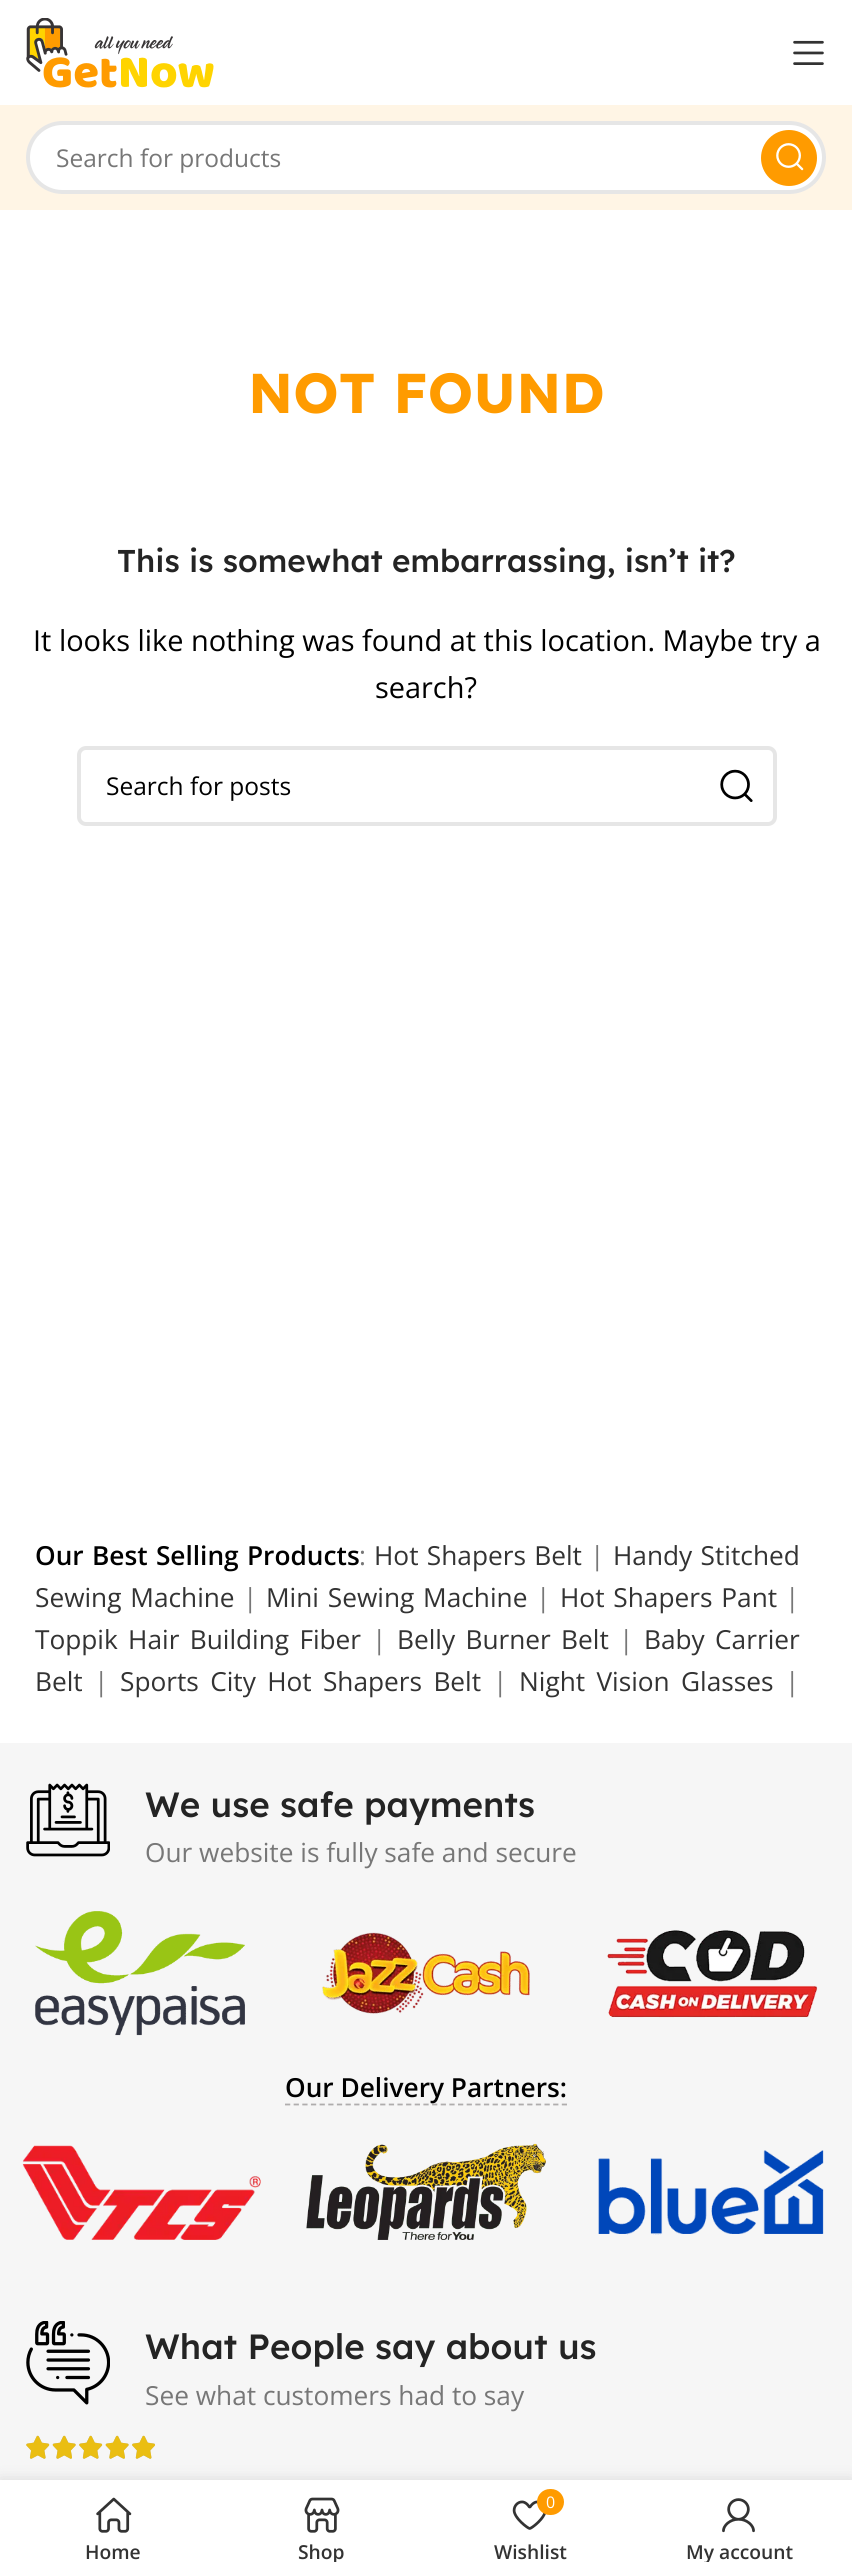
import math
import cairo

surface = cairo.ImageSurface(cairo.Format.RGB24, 852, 2575)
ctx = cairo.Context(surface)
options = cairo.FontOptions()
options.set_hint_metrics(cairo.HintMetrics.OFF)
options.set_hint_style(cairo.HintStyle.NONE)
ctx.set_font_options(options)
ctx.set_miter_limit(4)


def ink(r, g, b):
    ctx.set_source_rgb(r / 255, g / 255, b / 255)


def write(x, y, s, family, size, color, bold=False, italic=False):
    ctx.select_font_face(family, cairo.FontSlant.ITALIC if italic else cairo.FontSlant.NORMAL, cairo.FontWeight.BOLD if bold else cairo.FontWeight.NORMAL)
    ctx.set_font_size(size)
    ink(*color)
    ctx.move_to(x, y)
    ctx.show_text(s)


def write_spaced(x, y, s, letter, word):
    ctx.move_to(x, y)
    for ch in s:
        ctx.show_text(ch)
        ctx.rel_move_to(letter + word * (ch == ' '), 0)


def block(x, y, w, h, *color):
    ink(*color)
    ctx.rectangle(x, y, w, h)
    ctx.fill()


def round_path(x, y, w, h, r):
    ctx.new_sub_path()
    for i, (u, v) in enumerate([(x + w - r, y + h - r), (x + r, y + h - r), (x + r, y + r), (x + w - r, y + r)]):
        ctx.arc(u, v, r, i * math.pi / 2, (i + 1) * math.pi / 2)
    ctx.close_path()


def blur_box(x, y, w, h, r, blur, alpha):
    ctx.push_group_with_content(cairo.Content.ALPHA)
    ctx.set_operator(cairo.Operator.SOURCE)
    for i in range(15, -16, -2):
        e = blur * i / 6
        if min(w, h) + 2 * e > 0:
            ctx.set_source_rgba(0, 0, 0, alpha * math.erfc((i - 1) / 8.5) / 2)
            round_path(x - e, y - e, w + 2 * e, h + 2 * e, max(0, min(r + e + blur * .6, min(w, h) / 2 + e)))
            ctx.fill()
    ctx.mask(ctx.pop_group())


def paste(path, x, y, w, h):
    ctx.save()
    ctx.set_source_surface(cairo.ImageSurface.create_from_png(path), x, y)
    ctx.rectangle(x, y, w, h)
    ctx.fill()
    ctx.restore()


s1 = dict(family="Open Sans", size=24.5, color=(119, 119, 119))
s2 = dict(family="Lexend Deca", size=56, color=(255, 155, 0), bold=True)
s3 = dict(family="Lexend Deca Medium", size=31.5, color=(36, 36, 36))
s4 = dict(family="Open Sans", size=28.9, color=(0, 0, 0))
s5 = dict(family="Open Sans", size=24.5, color=(0, 0, 0))
s6 = dict(family="Open Sans", size=26.25, color=(119, 119, 119))
s7 = dict(family="Open Sans", size=26.25, color=(51, 51, 51))
s8 = dict(family="Lexend Deca Medium", size=35, color=(36, 36, 36))
s9 = dict(family="Open Sans SemiBold", size=26.25, color=(0, 0, 0))
s10 = dict(family="Open Sans SemiBold", size=19.25, color=(51, 51, 51))
s11 = dict(family="Open Sans", size=16, color=(255, 255, 255))

ink(255, 255, 255)
ctx.paint()
paste("pic1.png", 26, 18, 188, 70)
paste("pic2.png", 793, 40, 31, 25)
block(0, 105, 852, 105, 255, 245, 229)
ink(255, 255, 255)
round_path(26, 121, 800, 73, 36.5)
ctx.fill()
round_path(28, 123, 796, 69, 34.5)
ctx.set_source_rgba(0, 0, 0, 0.1)
ctx.set_line_width(4)
ctx.stroke()
write(56, 167, "Search for products", **s1)
ink(255, 155, 0)
ctx.new_path()
ctx.arc(789, 158, 28, 0, 2 * math.pi)
ctx.fill()
paste("pic3.png", 776, 143, 28, 28)
write(248, 413, "NOT FOUND", **s2)
write(117, 572, "This is somewhat embarrassing, isn’t it?", **s3)
write(33, 651, "It looks like nothing was found at this location. Maybe try a", **s4)
write(375, 698, "search?", **s4)
round_path(79, 748, 696, 76, 7)
ink(230, 230, 230)
ctx.stroke()
write(106, 795, "Search for posts", **s5)
paste("pic4.png", 720, 769, 33, 33)
ctx.select_font_face("Open Sans SemiBold")
ctx.set_font_size(26.25)
write_spaced(35, 1565, "Our Best Selling Products", 0, 1.5)
write(359, 1565, ":", **s6)
ink(51, 51, 51)
write_spaced(374, 1565, "Hot Shapers Belt", 0, 1.5)
write(590, 1565, "|", **s6)
ink(51, 51, 51)
write_spaced(613, 1565, "Handy Stitched", 0, 1.5)
write_spaced(35, 1607, "Sewing Machine", 0, 2)
write(243, 1607, "|", **s6)
ink(51, 51, 51)
write_spaced(266, 1607, "Mini Sewing Machine", 0, 2)
write(536, 1607, "|", **s6)
ink(51, 51, 51)
write_spaced(560, 1607, "Hot Shapers Pant", 0, 2)
write(785, 1607, "|", **s6)
ink(51, 51, 51)
write_spaced(35, 1649, "Toppik Hair Building Fiber", 0, 3.5)
write(372, 1649, "|", **s6)
ink(51, 51, 51)
write_spaced(397, 1649, "Belly Burner Belt", 0, 3.5)
write(619, 1649, "|", **s6)
ink(51, 51, 51)
write_spaced(644, 1649, "Baby Carrier", 0, 3.5)
write(35, 1691, "Belt", **s7)
write(94, 1691, "|", **s6)
ink(51, 51, 51)
write_spaced(120, 1691, "Sports City Hot Shapers Belt", 0, 4.5)
write(493, 1691, "|", **s6)
ink(51, 51, 51)
write_spaced(519, 1691, "Night Vision Glasses", 0, 4.5)
write(785, 1691, "|", **s6)
block(0, 1743, 852, 737, 246, 246, 246)
paste("pic5.png", 26, 1783, 84, 74)
write(145, 1817, "We use safe payments", **s8)
write(145, 1862, "Our website is fully safe and secure", **s6)
paste("pic6.png", 35, 1911, 210, 125)
paste("pic7.png", 322, 1932, 208, 82)
paste("pic8.png", 607, 1930, 211, 88)
ctx.new_path()
ctx.move_to(285, 2104.5)
ctx.line_to(567, 2104.5)
ink(175, 173, 173)
ctx.set_line_width(1.8)
ctx.set_dash([5.25, 3.4])
ctx.stroke()
write(285, 2097, "Our Delivery Partners:", **s9)
paste("pic9.png", 22, 2145, 239, 95)
paste("pic10.png", 306, 2143, 240, 97)
paste("pic11.png", 598, 2150, 226, 85)
paste("pic12.png", 26, 2321, 84, 84)
write(145, 2359, "What People say about us", **s8)
write(145, 2405, "See what customers had to say", **s6)
paste("pic13.png", 26, 2435, 129, 24)
paste("pic14.png", 26, 2435, 129, 24)
ink(0, 0, 0)
blur_box(0, 2480, 852, 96, 0, 8, 0.12)
block(0, 2480, 852, 95, 255, 255, 255)
paste("pic15.png", 96, 2497, 36, 36)
write(85, 2559, "Home", **s10)
paste("pic16.png", 304, 2497, 36, 36)
ctx.save()
ctx.rectangle(235, 2539, 175, 23)
ctx.clip()
write(298, 2559, "Shop", **s10)
ctx.restore()
paste("pic17.png", 512, 2500, 34, 30)
ink(255, 155, 0)
round_path(537, 2489, 27, 26, 13)
ctx.fill()
write(546, 2508, "0", **s11)
write(494, 2559, "Wishlist", **s10)
paste("pic18.png", 722, 2498, 33, 35)
ctx.save()
ctx.rectangle(653, 2539, 173, 23)
ctx.clip()
write(686, 2559, "My account", **s10)
ctx.restore()
surface.write_to_png("screenshot.png")
